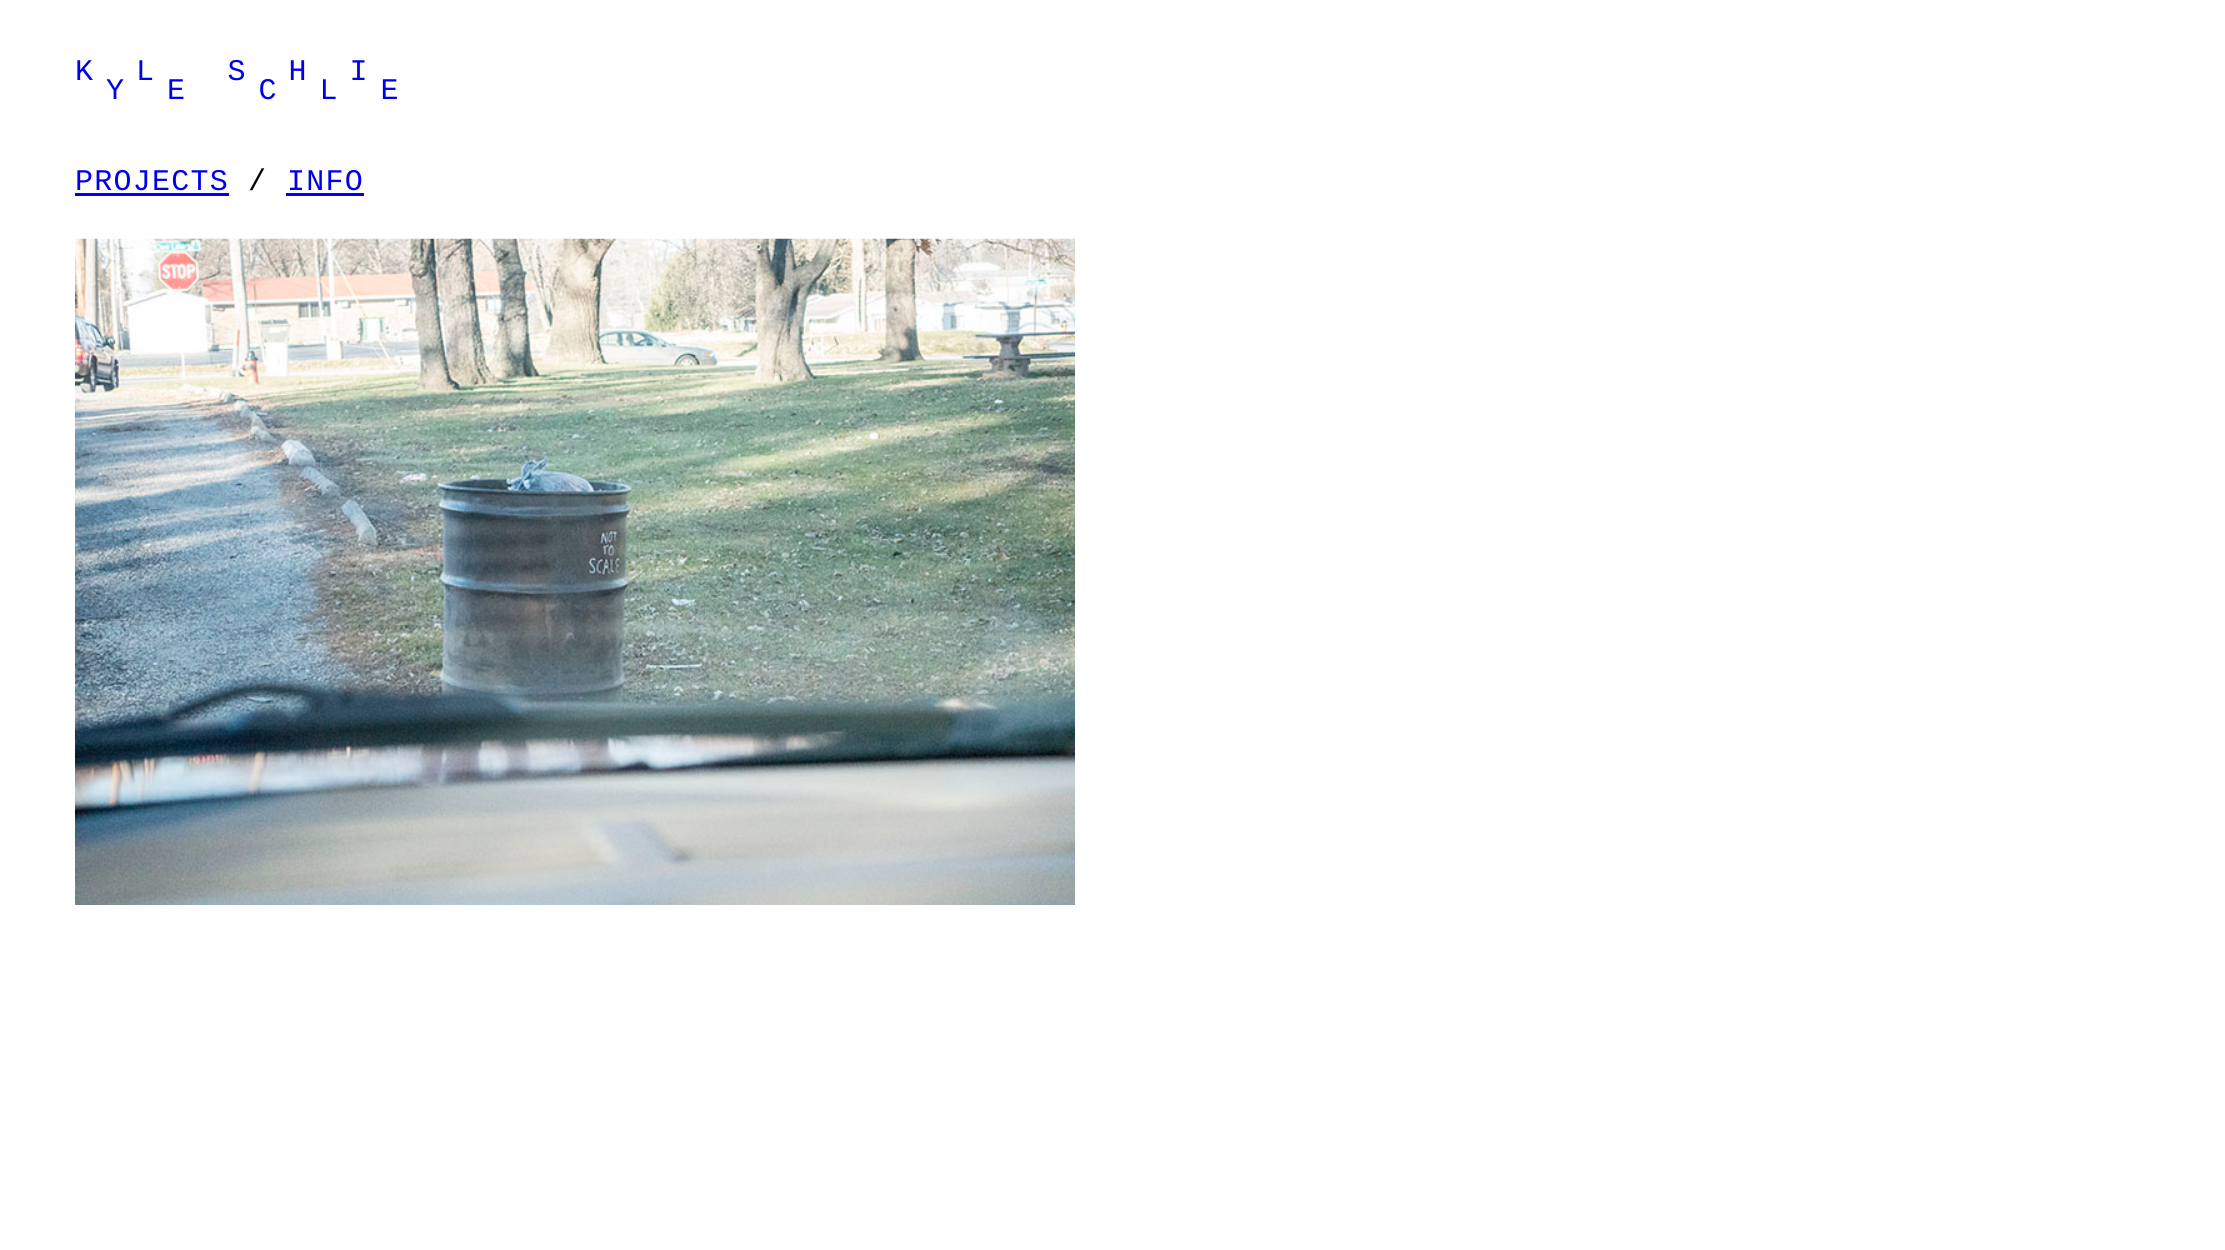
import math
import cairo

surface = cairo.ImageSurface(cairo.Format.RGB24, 2225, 1250)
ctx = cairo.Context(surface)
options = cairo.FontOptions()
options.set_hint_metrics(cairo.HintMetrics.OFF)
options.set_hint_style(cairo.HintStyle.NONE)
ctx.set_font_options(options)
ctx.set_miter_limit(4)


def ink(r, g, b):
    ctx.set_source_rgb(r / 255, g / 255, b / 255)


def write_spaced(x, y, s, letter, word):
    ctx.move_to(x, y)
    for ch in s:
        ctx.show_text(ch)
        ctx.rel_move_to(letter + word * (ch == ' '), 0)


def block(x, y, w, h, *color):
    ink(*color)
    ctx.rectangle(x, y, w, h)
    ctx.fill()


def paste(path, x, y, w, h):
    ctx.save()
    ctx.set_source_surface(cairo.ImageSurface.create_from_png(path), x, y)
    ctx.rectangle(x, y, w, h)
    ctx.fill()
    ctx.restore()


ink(255, 255, 255)
ctx.paint()
ctx.select_font_face("Liberation Mono")
ctx.set_font_size(30)
ink(0, 0, 238)
write_spaced(75, 80, "K L  S H I", 12.5, 0)
write_spaced(106, 99, "Y E  C L E", 12.5, 0)
write_spaced(75, 190, "PROJECTS", 1.25, 0)
block(75, 193, 154, 3, 0, 0, 238)
ink(0, 0, 0)
write_spaced(248, 190, "/", 1.25, 0)
ink(0, 0, 238)
write_spaced(287, 190, "INFO", 1.25, 0)
block(286, 193, 78, 3, 0, 0, 238)
paste("pic1.png", 75, 238, 1000, 667)
surface.write_to_png("screenshot.png")
